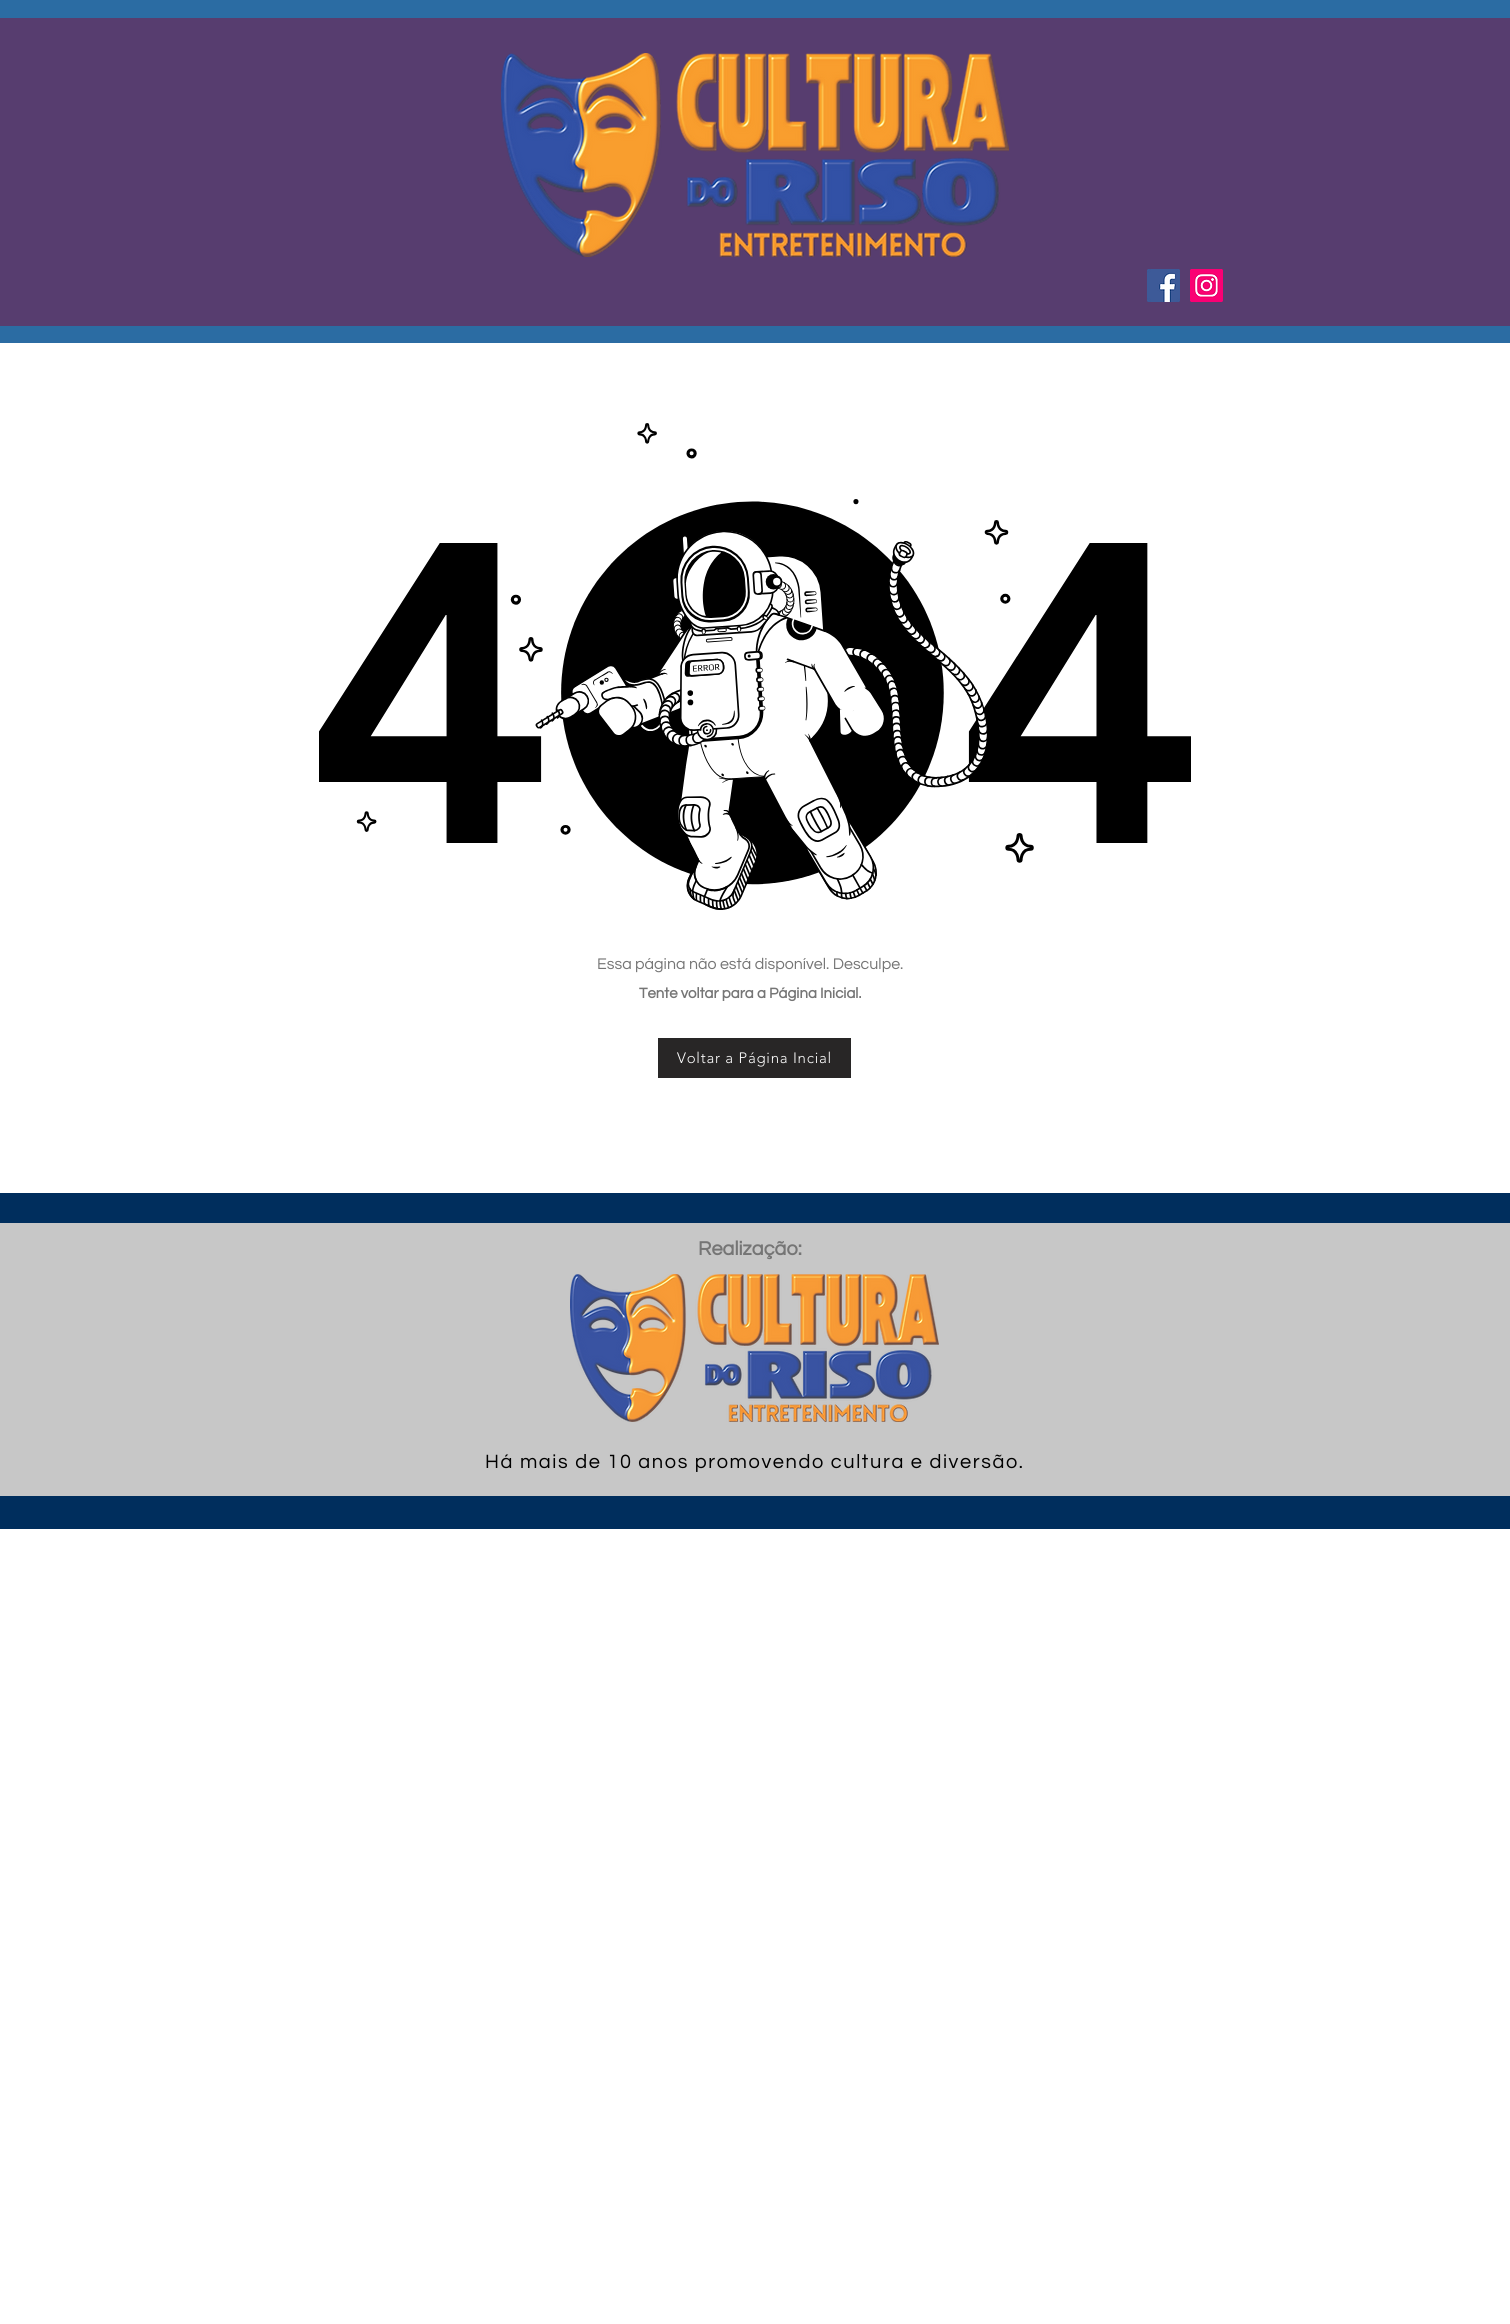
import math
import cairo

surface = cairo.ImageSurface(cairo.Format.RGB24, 1510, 2324)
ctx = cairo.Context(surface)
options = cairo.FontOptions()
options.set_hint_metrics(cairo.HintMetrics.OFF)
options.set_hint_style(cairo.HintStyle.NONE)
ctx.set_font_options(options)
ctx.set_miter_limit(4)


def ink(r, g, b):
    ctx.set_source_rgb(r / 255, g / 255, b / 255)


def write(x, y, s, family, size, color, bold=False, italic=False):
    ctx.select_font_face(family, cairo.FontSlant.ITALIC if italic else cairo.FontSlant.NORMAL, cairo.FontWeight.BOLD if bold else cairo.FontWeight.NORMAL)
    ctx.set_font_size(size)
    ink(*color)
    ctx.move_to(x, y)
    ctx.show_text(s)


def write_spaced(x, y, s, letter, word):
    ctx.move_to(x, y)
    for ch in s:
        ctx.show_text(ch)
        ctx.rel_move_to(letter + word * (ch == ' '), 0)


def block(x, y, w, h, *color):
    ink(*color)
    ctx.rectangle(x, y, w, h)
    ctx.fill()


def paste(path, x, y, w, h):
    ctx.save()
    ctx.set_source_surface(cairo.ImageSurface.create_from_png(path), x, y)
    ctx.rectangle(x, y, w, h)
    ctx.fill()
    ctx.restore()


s1 = dict(family="Questrial", size=16, color=(117, 117, 117))
s2 = dict(family="Questrial", size=15, color=(117, 117, 117), bold=True)
s3 = dict(family="Questrial", size=20, color=(117, 117, 117), bold=True)

ink(255, 255, 255)
ctx.paint()
block(0, 0, 1510, 343, 43, 108, 163)
block(0, 18, 1510, 308, 87, 61, 111)
paste("pic1.png", 501, 53, 508, 204)
paste("pic2.png", 1147, 269, 33, 33)
paste("pic3.png", 1190, 269, 33, 33)
paste("pic4.png", 319, 423, 872, 487)
write(597, 969, "Essa página não está disponível. Desculpe.", **s1)
write(639, 998, "Tente voltar para a Página Inicial.", **s2)
block(658, 1038, 193, 40, 40, 38, 38)
ctx.select_font_face("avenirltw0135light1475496 Light")
ink(255, 255, 255)
write_spaced(677, 1063, "Voltar a Página Incial", 0.75, 0)
block(0, 1193, 1510, 336, 0, 46, 93)
block(0, 1223, 1510, 273, 199, 199, 199)
write(698, 1255, "Realização:", **s3)
paste("pic5.png", 570, 1274, 369, 148)
ctx.select_font_face("Questrial")
ink(0, 0, 0)
write_spaced(485, 1468, "Há mais de 10 anos promovendo cultura e diversão.", 1.6, 0)
surface.write_to_png("screenshot.png")
